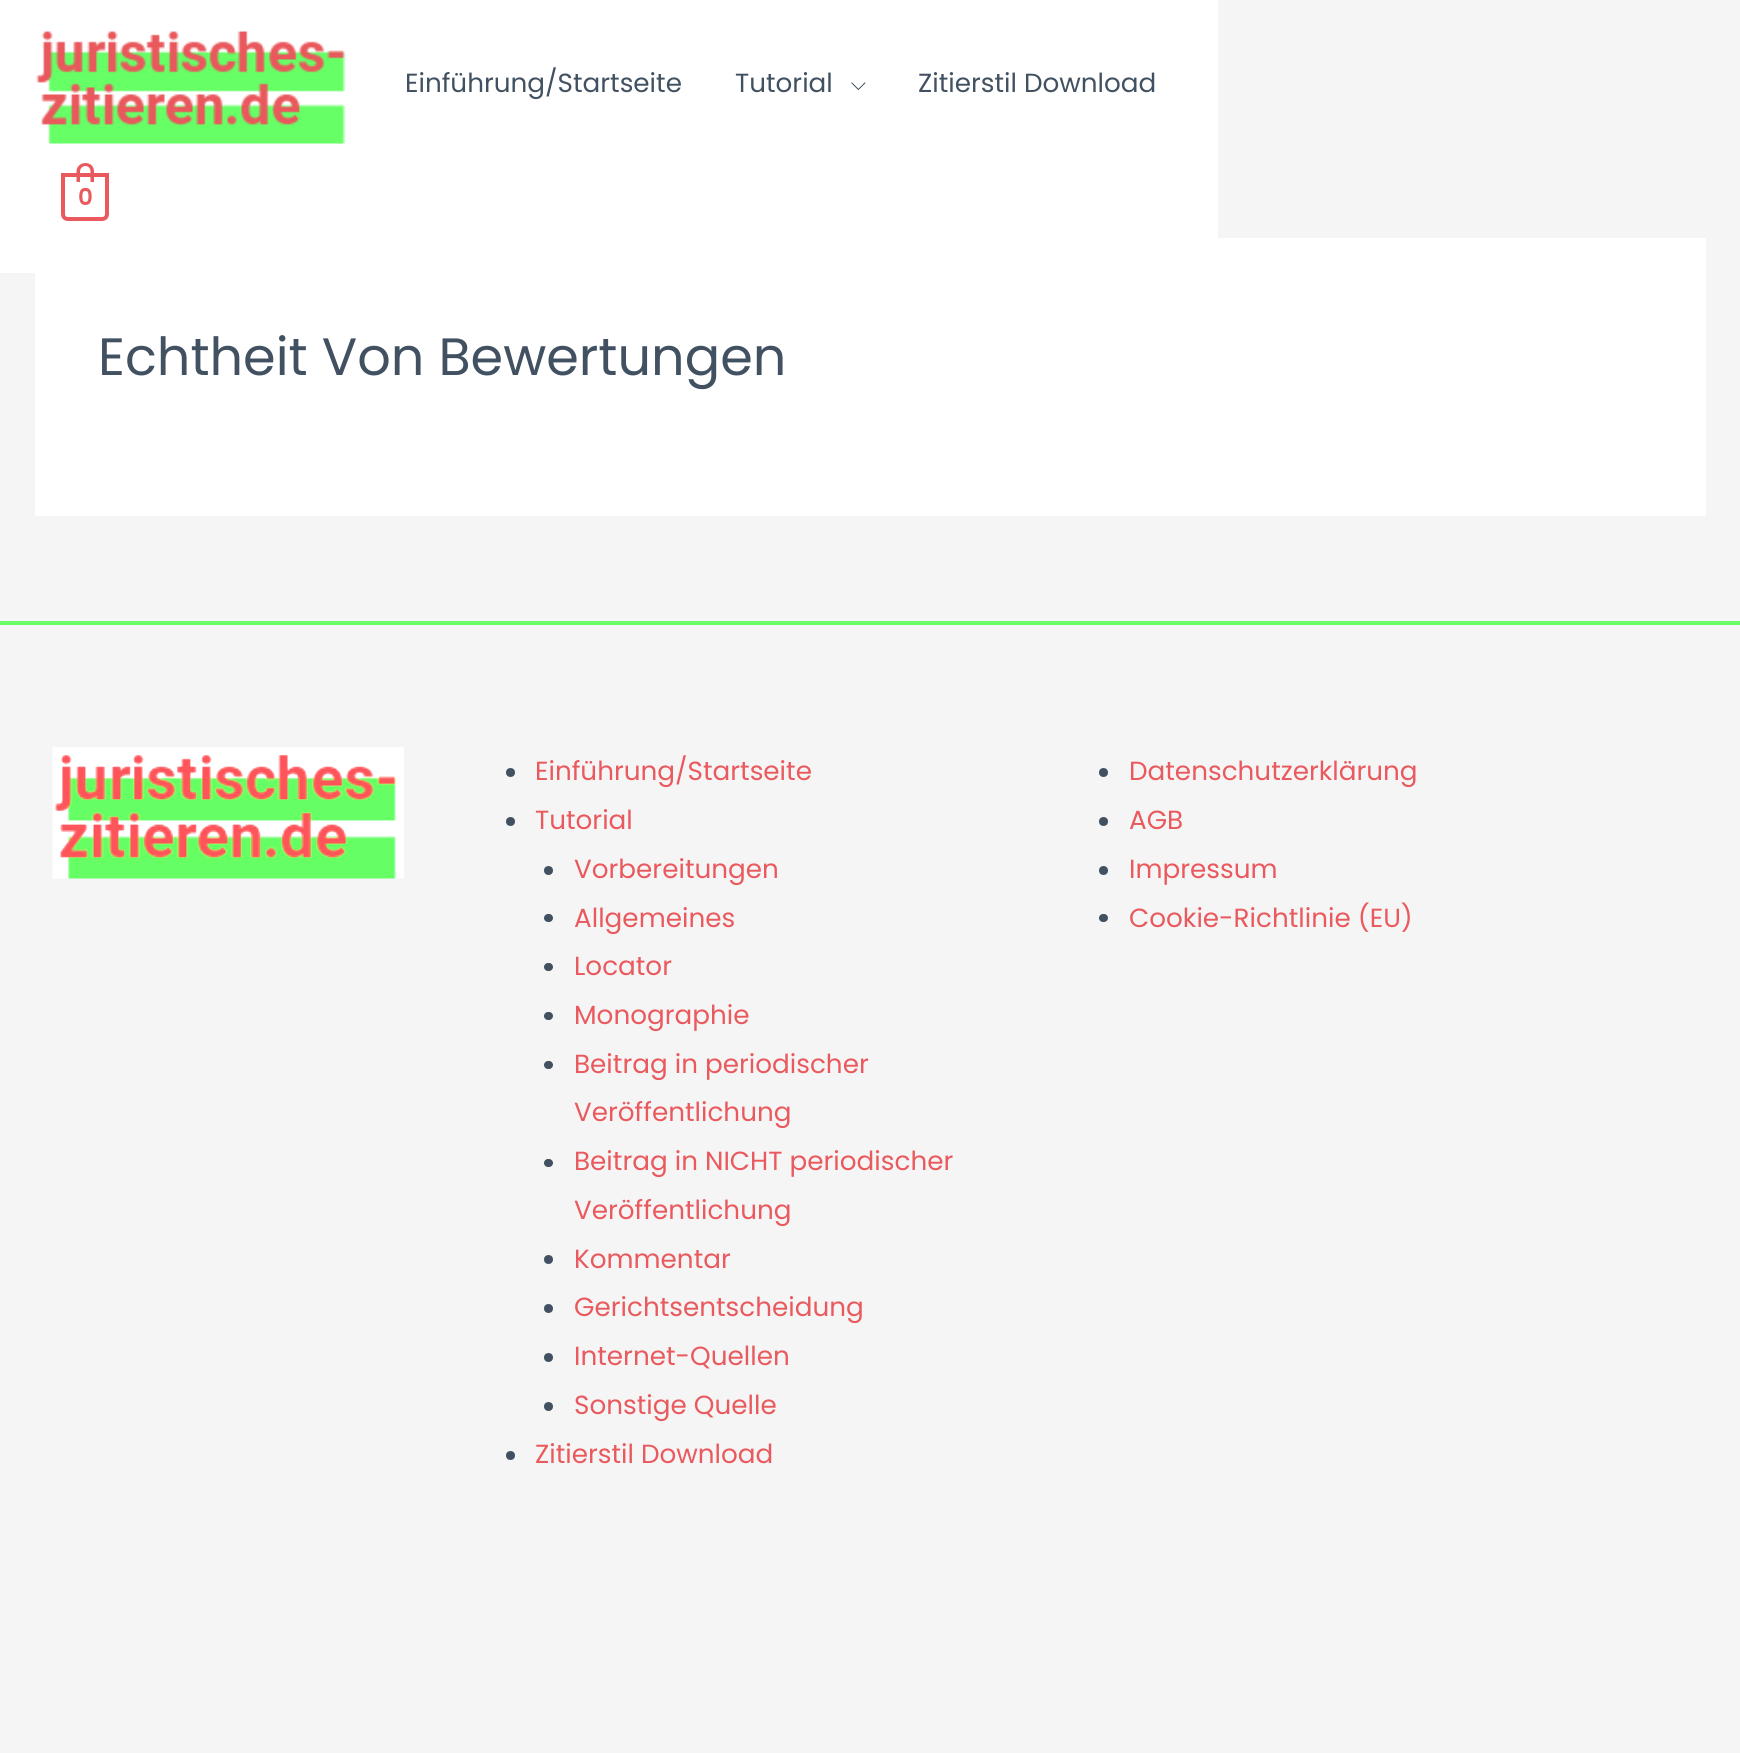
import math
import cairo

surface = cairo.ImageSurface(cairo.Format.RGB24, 1740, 1753)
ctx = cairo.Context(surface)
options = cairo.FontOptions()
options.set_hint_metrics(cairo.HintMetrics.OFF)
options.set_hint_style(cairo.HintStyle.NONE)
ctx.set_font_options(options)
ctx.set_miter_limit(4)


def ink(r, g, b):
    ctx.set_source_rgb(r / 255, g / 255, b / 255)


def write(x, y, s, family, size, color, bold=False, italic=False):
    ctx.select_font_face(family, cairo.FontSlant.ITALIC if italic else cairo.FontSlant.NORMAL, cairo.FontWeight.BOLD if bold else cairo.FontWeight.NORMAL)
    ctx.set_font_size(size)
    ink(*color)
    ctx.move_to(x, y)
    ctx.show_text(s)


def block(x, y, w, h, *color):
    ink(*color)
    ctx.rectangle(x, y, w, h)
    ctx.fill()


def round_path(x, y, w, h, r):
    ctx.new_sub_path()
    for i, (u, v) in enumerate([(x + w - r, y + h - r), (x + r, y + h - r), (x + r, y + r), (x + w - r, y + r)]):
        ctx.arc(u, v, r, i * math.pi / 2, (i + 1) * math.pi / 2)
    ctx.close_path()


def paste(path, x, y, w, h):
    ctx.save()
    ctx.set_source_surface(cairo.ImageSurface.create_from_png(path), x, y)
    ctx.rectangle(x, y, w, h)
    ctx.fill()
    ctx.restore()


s1 = dict(family="Poppins", size=26.25, color=(65, 81, 97))
s2 = dict(family="Poppins SemiBold", size=23, color=(233, 89, 93))
s3 = dict(family="Poppins", size=52.5, color=(65, 81, 97))
s4 = dict(family="Poppins", size=26.25, color=(233, 89, 93))

ink(245, 245, 245)
ctx.paint()
block(35, 238, 1671, 278, 255, 255, 255)
block(0, 0, 1218, 273, 255, 255, 255)
paste("pic1.png", 36, 31, 310, 113)
write(405, 92, "Einführung/Startseite", **s1)
write(735, 92, "Tutorial", **s1)
paste("pic2.png", 851, 82, 15, 8)
write(918, 92, "Zitierstil Download", **s1)
ctx.new_path()
ctx.move_to(63, 175)
ctx.line_to(107, 175)
ctx.line_to(107, 214)
ctx.curve_to(107, 217, 105, 219, 102, 219)
ctx.line_to(68, 219)
ctx.curve_to(65, 219, 63, 217, 63, 214)
ctx.close_path()
ink(233, 89, 93)
ctx.set_line_width(4)
ctx.stroke()
ctx.set_fill_rule(cairo.FillRule.EVEN_ODD)
ctx.new_path()
ctx.move_to(85.5, 163)
ctx.curve_to(90.5, 163, 94, 166.5, 94, 171.5)
ctx.line_to(94, 182)
ctx.line_to(76.5, 182)
ctx.line_to(76.5, 171.5)
ctx.curve_to(76.5, 166.5, 80.5, 163, 85.5, 163)
ctx.close_path()
ctx.move_to(85.5, 166)
ctx.curve_to(88.5, 166, 90.5, 168.5, 90.5, 171.5)
ctx.line_to(90.5, 182)
ctx.line_to(80, 182)
ctx.line_to(80, 171.5)
ctx.curve_to(80, 168.5, 82.5, 166, 85.5, 166)
ctx.close_path()
ctx.fill()
write(78, 205, "0", **s2)
write(98, 375, "Echtheit Von Bewertungen", **s3)
block(0, 621, 1740, 4, 107, 255, 102)
paste("pic3.png", 52, 747, 352, 132)
ink(65, 81, 97)
ctx.arc(510.5, 772.5, 4.5, 0, 2 * math.pi)
ctx.fill()
write(535, 780, "Einführung/Startseite", **s4)
ink(65, 81, 97)
ctx.new_path()
ctx.arc(510.5, 821.5, 4.5, 0, 2 * math.pi)
ctx.fill()
write(535, 829, "Tutorial", **s4)
ink(65, 81, 97)
ctx.new_path()
ctx.arc(548.5, 870.5, 4.5, 0, 2 * math.pi)
ctx.fill()
write(574, 878, "Vorbereitungen", **s4)
ink(65, 81, 97)
round_path(544, 914, 9, 8, 4)
ctx.fill()
write(574, 927, "Allgemeines", **s4)
ink(65, 81, 97)
round_path(544, 963, 9, 8, 4)
ctx.fill()
write(574, 975, "Locator", **s4)
ink(65, 81, 97)
round_path(544, 1012, 9, 8, 4)
ctx.fill()
write(574, 1024, "Monographie", **s4)
ink(65, 81, 97)
round_path(544, 1061, 9, 8, 4)
ctx.fill()
write(574, 1073, "Beitrag in periodischer", **s4)
write(574, 1121, "Veröffentlichung", **s4)
ink(65, 81, 97)
round_path(544, 1159, 9, 8, 4)
ctx.fill()
write(574, 1170, "Beitrag in NICHT periodischer", **s4)
write(574, 1219, "Veröffentlichung", **s4)
ink(65, 81, 97)
ctx.new_path()
ctx.arc(548.5, 1259.5, 4.5, 0, 2 * math.pi)
ctx.fill()
write(574, 1268, "Kommentar", **s4)
ink(65, 81, 97)
ctx.new_path()
ctx.arc(548.5, 1308.5, 4.5, 0, 2 * math.pi)
ctx.fill()
write(574, 1316, "Gerichtsentscheidung", **s4)
ink(65, 81, 97)
ctx.new_path()
ctx.arc(548.5, 1357.5, 4.5, 0, 2 * math.pi)
ctx.fill()
write(574, 1365, "Internet-Quellen", **s4)
ink(65, 81, 97)
ctx.new_path()
ctx.arc(548.5, 1406.5, 4.5, 0, 2 * math.pi)
ctx.fill()
write(574, 1414, "Sonstige Quelle", **s4)
ink(65, 81, 97)
ctx.new_path()
ctx.arc(510.5, 1455.5, 4.5, 0, 2 * math.pi)
ctx.fill()
write(535, 1463, "Zitierstil Download", **s4)
ink(65, 81, 97)
ctx.new_path()
ctx.arc(1103.5, 772.5, 4.5, 0, 2 * math.pi)
ctx.fill()
write(1129, 780, "Datenschutzerklärung", **s4)
ink(65, 81, 97)
ctx.new_path()
ctx.arc(1103.5, 821.5, 4.5, 0, 2 * math.pi)
ctx.fill()
write(1129, 829, "AGB", **s4)
ink(65, 81, 97)
ctx.new_path()
ctx.arc(1103.5, 870.5, 4.5, 0, 2 * math.pi)
ctx.fill()
write(1129, 878, "Impressum", **s4)
ink(65, 81, 97)
round_path(1099, 914, 9, 8, 4)
ctx.fill()
write(1129, 927, "Cookie-Richtlinie (EU)", **s4)
surface.write_to_png("screenshot.png")
